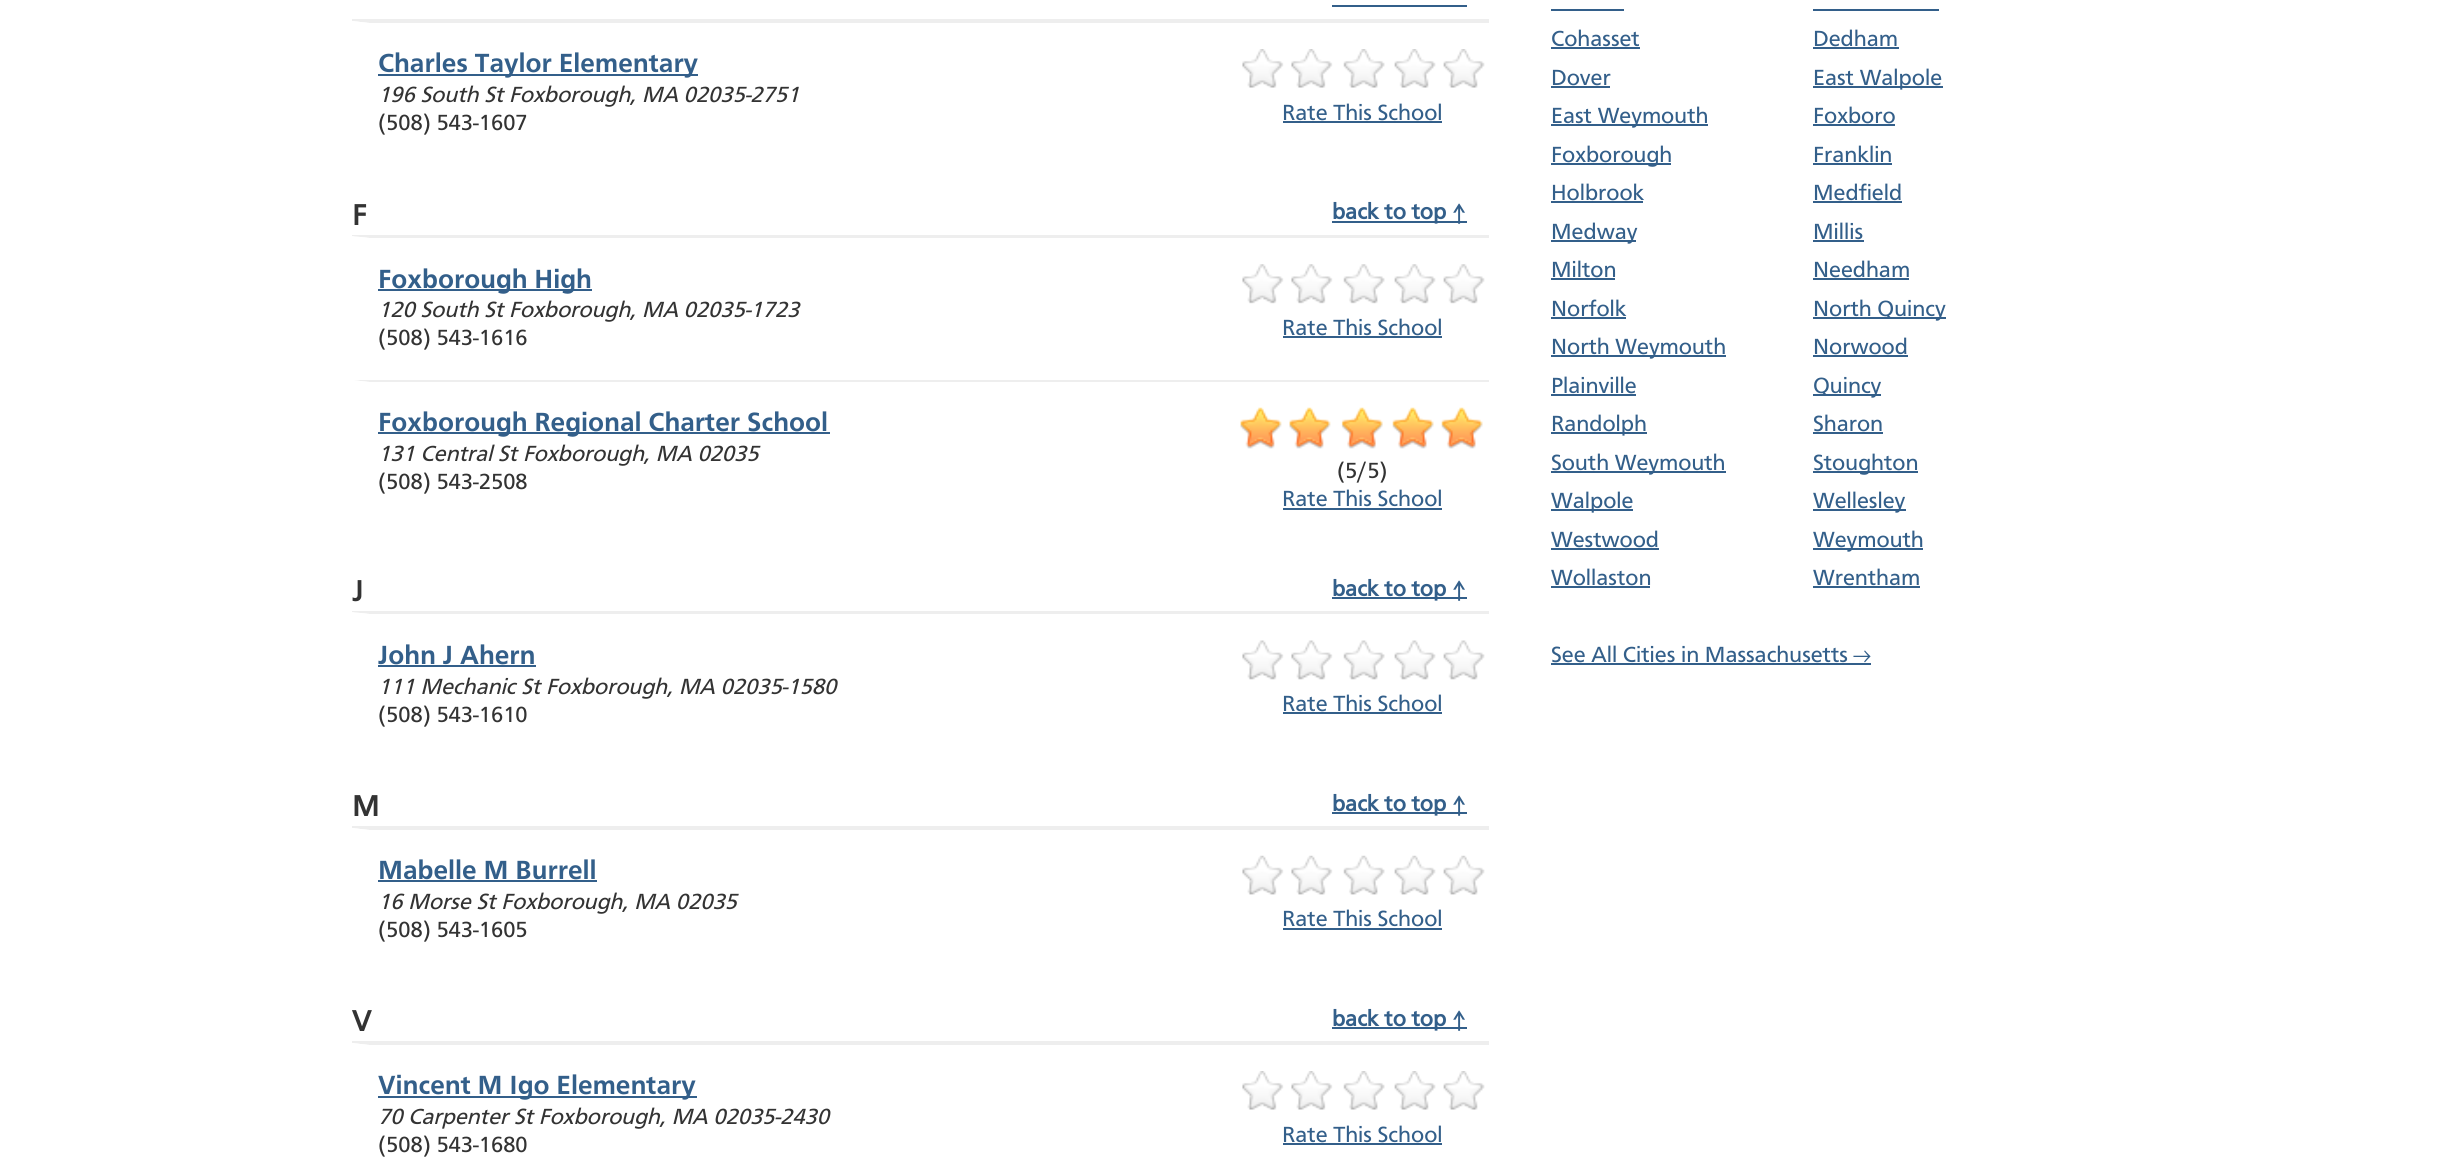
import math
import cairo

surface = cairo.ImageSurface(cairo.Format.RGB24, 2453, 1162)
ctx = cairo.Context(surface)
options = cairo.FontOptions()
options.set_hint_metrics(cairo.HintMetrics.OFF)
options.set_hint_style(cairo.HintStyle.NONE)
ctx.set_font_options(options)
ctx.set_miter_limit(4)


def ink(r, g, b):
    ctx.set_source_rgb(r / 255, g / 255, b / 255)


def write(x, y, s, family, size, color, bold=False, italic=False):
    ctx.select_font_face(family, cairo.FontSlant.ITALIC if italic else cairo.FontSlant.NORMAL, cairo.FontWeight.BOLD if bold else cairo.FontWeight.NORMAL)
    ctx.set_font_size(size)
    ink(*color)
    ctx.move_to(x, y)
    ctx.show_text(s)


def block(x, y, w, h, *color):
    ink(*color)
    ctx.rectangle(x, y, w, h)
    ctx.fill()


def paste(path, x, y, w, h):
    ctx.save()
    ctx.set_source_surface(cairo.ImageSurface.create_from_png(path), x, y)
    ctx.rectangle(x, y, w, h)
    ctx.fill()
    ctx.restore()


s1 = dict(family="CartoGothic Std", size=27.25, color=(51, 95, 138), bold=True)
s2 = dict(family="CartoGothic Std", size=22.75, color=(51, 51, 51), italic=True)
s3 = dict(family="CartoGothic Std", size=22.75, color=(51, 51, 51))
s4 = dict(family="CartoGothic Std", size=22.75, color=(51, 95, 138))
s5 = dict(family="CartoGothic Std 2", size=30, color=(51, 51, 51), bold=True)
s6 = dict(family="CartoGothic Std 2", size=22.75, color=(51, 95, 138), bold=True)
s7 = dict(family="FreeSans SemiBold", size=22.75, color=(51, 95, 138))
s8 = dict(family="FreeSans", size=22.75, color=(51, 95, 138))

ink(255, 255, 255)
ctx.paint()
block(352, 19, 1137, 2, 238, 238, 238)
block(1332, 5, 135, 2, 51, 95, 138)
ink(238, 238, 238)
ctx.new_path()
ctx.move_to(352, 21)
ctx.line_to(1489, 21)
ctx.line_to(1489, 23)
ctx.line_to(369, 23)
ctx.close_path()
ctx.fill()
ink(255, 255, 255)
ctx.new_path()
ctx.move_to(352, 164)
ctx.line_to(352, 21)
ctx.line_to(369, 23)
ctx.line_to(369, 164)
ctx.close_path()
ctx.fill()
block(378, 74, 320, 2, 51, 95, 138)
write(378, 72, "Charles Taylor Elementary", **s1)
write(378, 102, "196 South St Foxborough, MA 02035-2751", **s2)
write(378, 130, "(508) 543-1607", **s3)
paste("pic1.png", 1242, 49, 243, 39)
write(1282, 120, "Rate This School", **s4)
block(1283, 121, 159, 2, 51, 95, 138)
block(352, 235, 1137, 2, 238, 238, 238)
write(352, 225, "F", **s5)
block(1332, 221, 135, 2, 51, 95, 138)
write(1332, 219, "back to top", **s6)
write(1452, 219, "↑", **s7)
ink(238, 238, 238)
ctx.new_path()
ctx.move_to(352, 236)
ctx.line_to(1489, 236)
ctx.line_to(1489, 238)
ctx.line_to(369, 238)
ctx.close_path()
ctx.fill()
ink(255, 255, 255)
ctx.new_path()
ctx.move_to(352, 380)
ctx.line_to(352, 236)
ctx.line_to(369, 238)
ctx.line_to(369, 380)
ctx.close_path()
ctx.fill()
block(378, 289, 214, 2, 51, 95, 138)
write(378, 288, "Foxborough High", **s1)
write(378, 317, "120 South St Foxborough, MA 02035-1723", **s2)
write(378, 345, "(508) 543-1616", **s3)
paste("pic2.png", 1242, 264, 243, 40)
write(1282, 335, "Rate This School", **s4)
block(1283, 336, 159, 2, 51, 95, 138)
ink(238, 238, 238)
ctx.new_path()
ctx.move_to(352, 380)
ctx.line_to(1489, 380)
ctx.line_to(1489, 382)
ctx.line_to(369, 382)
ctx.close_path()
ctx.fill()
ink(255, 255, 255)
ctx.new_path()
ctx.move_to(352, 541)
ctx.line_to(352, 380)
ctx.line_to(369, 382)
ctx.line_to(369, 541)
ctx.close_path()
ctx.fill()
block(378, 432, 452, 2, 51, 95, 138)
write(378, 431, "Foxborough Regional Charter School", **s1)
write(378, 461, "131 Central St Foxborough, MA 02035", **s2)
write(378, 489, "(508) 543-2508", **s3)
paste("pic3.png", 1240, 407, 243, 42)
write(1337, 478, "(5/5)", **s3)
write(1282, 506, "Rate This School", **s4)
block(1283, 508, 159, 2, 51, 95, 138)
block(352, 611, 1137, 2, 238, 238, 238)
write(352, 601, "J", **s5)
block(1332, 597, 135, 2, 51, 95, 138)
write(1332, 596, "back to top", **s6)
write(1452, 596, "↑", **s7)
ink(238, 238, 238)
ctx.new_path()
ctx.move_to(352, 612)
ctx.line_to(1489, 612)
ctx.line_to(1489, 614)
ctx.line_to(369, 614)
ctx.close_path()
ctx.fill()
ink(255, 255, 255)
ctx.new_path()
ctx.move_to(352, 756)
ctx.line_to(352, 612)
ctx.line_to(369, 614)
ctx.line_to(369, 756)
ctx.close_path()
ctx.fill()
write(378, 664, "John J Ahern", **s1)
block(378, 665, 158, 2, 51, 95, 138)
write(378, 694, "111 Mechanic St Foxborough, MA 02035-1580", **s2)
write(378, 722, "(508) 543-1610", **s3)
paste("pic4.png", 1242, 640, 243, 40)
write(1282, 711, "Rate This School", **s4)
block(1283, 712, 159, 2, 51, 95, 138)
block(352, 826, 1137, 2, 238, 238, 238)
write(352, 816, "M", **s5)
block(1332, 812, 135, 2, 51, 95, 138)
write(1332, 811, "back to top", **s6)
write(1452, 811, "↑", **s7)
ink(238, 238, 238)
ctx.new_path()
ctx.move_to(352, 828)
ctx.line_to(1489, 828)
ctx.line_to(1489, 830)
ctx.line_to(369, 830)
ctx.close_path()
ctx.fill()
ink(255, 255, 255)
ctx.new_path()
ctx.move_to(352, 971)
ctx.line_to(352, 828)
ctx.line_to(369, 830)
ctx.line_to(369, 971)
ctx.close_path()
ctx.fill()
write(378, 879, "Mabelle M Burrell", **s1)
block(378, 880, 219, 2, 51, 95, 138)
write(378, 909, "16 Morse St Foxborough, MA 02035", **s2)
write(378, 937, "(508) 543-1605", **s3)
paste("pic5.png", 1242, 855, 243, 40)
write(1282, 926, "Rate This School", **s4)
block(1283, 928, 159, 2, 51, 95, 138)
block(352, 1041, 1137, 2, 238, 238, 238)
write(352, 1031, "V", **s5)
block(1332, 1027, 135, 2, 51, 95, 138)
write(1332, 1026, "back to top", **s6)
write(1452, 1026, "↑", **s7)
ink(238, 238, 238)
ctx.new_path()
ctx.move_to(352, 1043)
ctx.line_to(1489, 1043)
ctx.line_to(1489, 1045)
ctx.line_to(369, 1045)
ctx.close_path()
ctx.fill()
ink(255, 255, 255)
ctx.new_path()
ctx.move_to(352, 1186)
ctx.line_to(352, 1043)
ctx.line_to(369, 1045)
ctx.line_to(369, 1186)
ctx.close_path()
ctx.fill()
block(378, 1096, 319, 2, 51, 95, 138)
write(378, 1094, "Vincent M Igo Elementary", **s1)
write(378, 1124, "70 Carpenter St Foxborough, MA 02035-2430", **s2)
write(378, 1152, "(508) 543-1680", **s3)
paste("pic1.png", 1242, 1071, 243, 39)
write(1282, 1142, "Rate This School", **s4)
block(1283, 1143, 159, 2, 51, 95, 138)
block(1551, 9, 73, 2, 51, 95, 138)
block(1813, 9, 126, 2, 51, 95, 138)
write(1551, 46, "Cohasset", **s4)
block(1551, 47, 89, 2, 51, 95, 138)
write(1813, 46, "Dedham", **s4)
block(1813, 47, 86, 2, 51, 95, 138)
write(1551, 85, "Dover", **s4)
block(1551, 86, 59, 2, 51, 95, 138)
block(1813, 86, 130, 2, 51, 95, 138)
write(1813, 85, "East Walpole", **s4)
block(1551, 124, 157, 2, 51, 95, 138)
write(1551, 123, "East Weymouth", **s4)
write(1813, 123, "Foxboro", **s4)
block(1813, 124, 82, 2, 51, 95, 138)
block(1551, 163, 120, 2, 51, 95, 138)
write(1551, 162, "Foxborough", **s4)
write(1813, 162, "Franklin", **s4)
block(1813, 163, 79, 2, 51, 95, 138)
write(1551, 200, "Holbrook", **s4)
block(1551, 201, 92, 2, 51, 95, 138)
write(1813, 200, "Medfield", **s4)
block(1813, 201, 89, 2, 51, 95, 138)
block(1551, 240, 85, 2, 51, 95, 138)
write(1551, 239, "Medway", **s4)
write(1813, 239, "Millis", **s4)
block(1813, 240, 51, 2, 51, 95, 138)
write(1551, 277, "Milton", **s4)
block(1551, 278, 64, 2, 51, 95, 138)
write(1813, 277, "Needham", **s4)
block(1813, 278, 96, 2, 51, 95, 138)
write(1551, 316, "Norfolk", **s4)
block(1551, 317, 75, 2, 51, 95, 138)
block(1813, 317, 133, 2, 51, 95, 138)
write(1813, 316, "North Quincy", **s4)
block(1551, 355, 175, 2, 51, 95, 138)
write(1551, 354, "North Weymouth", **s4)
write(1813, 354, "Norwood", **s4)
block(1813, 355, 95, 2, 51, 95, 138)
write(1551, 393, "Plainville", **s4)
block(1551, 394, 85, 2, 51, 95, 138)
block(1813, 394, 68, 2, 51, 95, 138)
write(1813, 393, "Quincy", **s4)
block(1551, 432, 96, 2, 51, 95, 138)
write(1551, 431, "Randolph", **s4)
write(1813, 431, "Sharon", **s4)
block(1813, 432, 70, 2, 51, 95, 138)
block(1551, 471, 175, 2, 51, 95, 138)
write(1551, 470, "South Weymouth", **s4)
block(1813, 471, 105, 2, 51, 95, 138)
write(1813, 470, "Stoughton", **s4)
block(1551, 509, 82, 2, 51, 95, 138)
write(1551, 508, "Walpole", **s4)
block(1813, 509, 93, 2, 51, 95, 138)
write(1813, 508, "Wellesley", **s4)
write(1551, 547, "Westwood", **s4)
block(1551, 548, 108, 2, 51, 95, 138)
block(1813, 548, 110, 2, 51, 95, 138)
write(1813, 547, "Weymouth", **s4)
write(1551, 585, "Wollaston", **s4)
block(1551, 586, 99, 2, 51, 95, 138)
write(1813, 585, "Wrentham", **s4)
block(1813, 586, 107, 2, 51, 95, 138)
write(1551, 662, "See All Cities in Massachusetts", **s4)
write(1853, 662, "→", **s8)
block(1551, 663, 320, 2, 51, 95, 138)
surface.write_to_png("screenshot.png")
